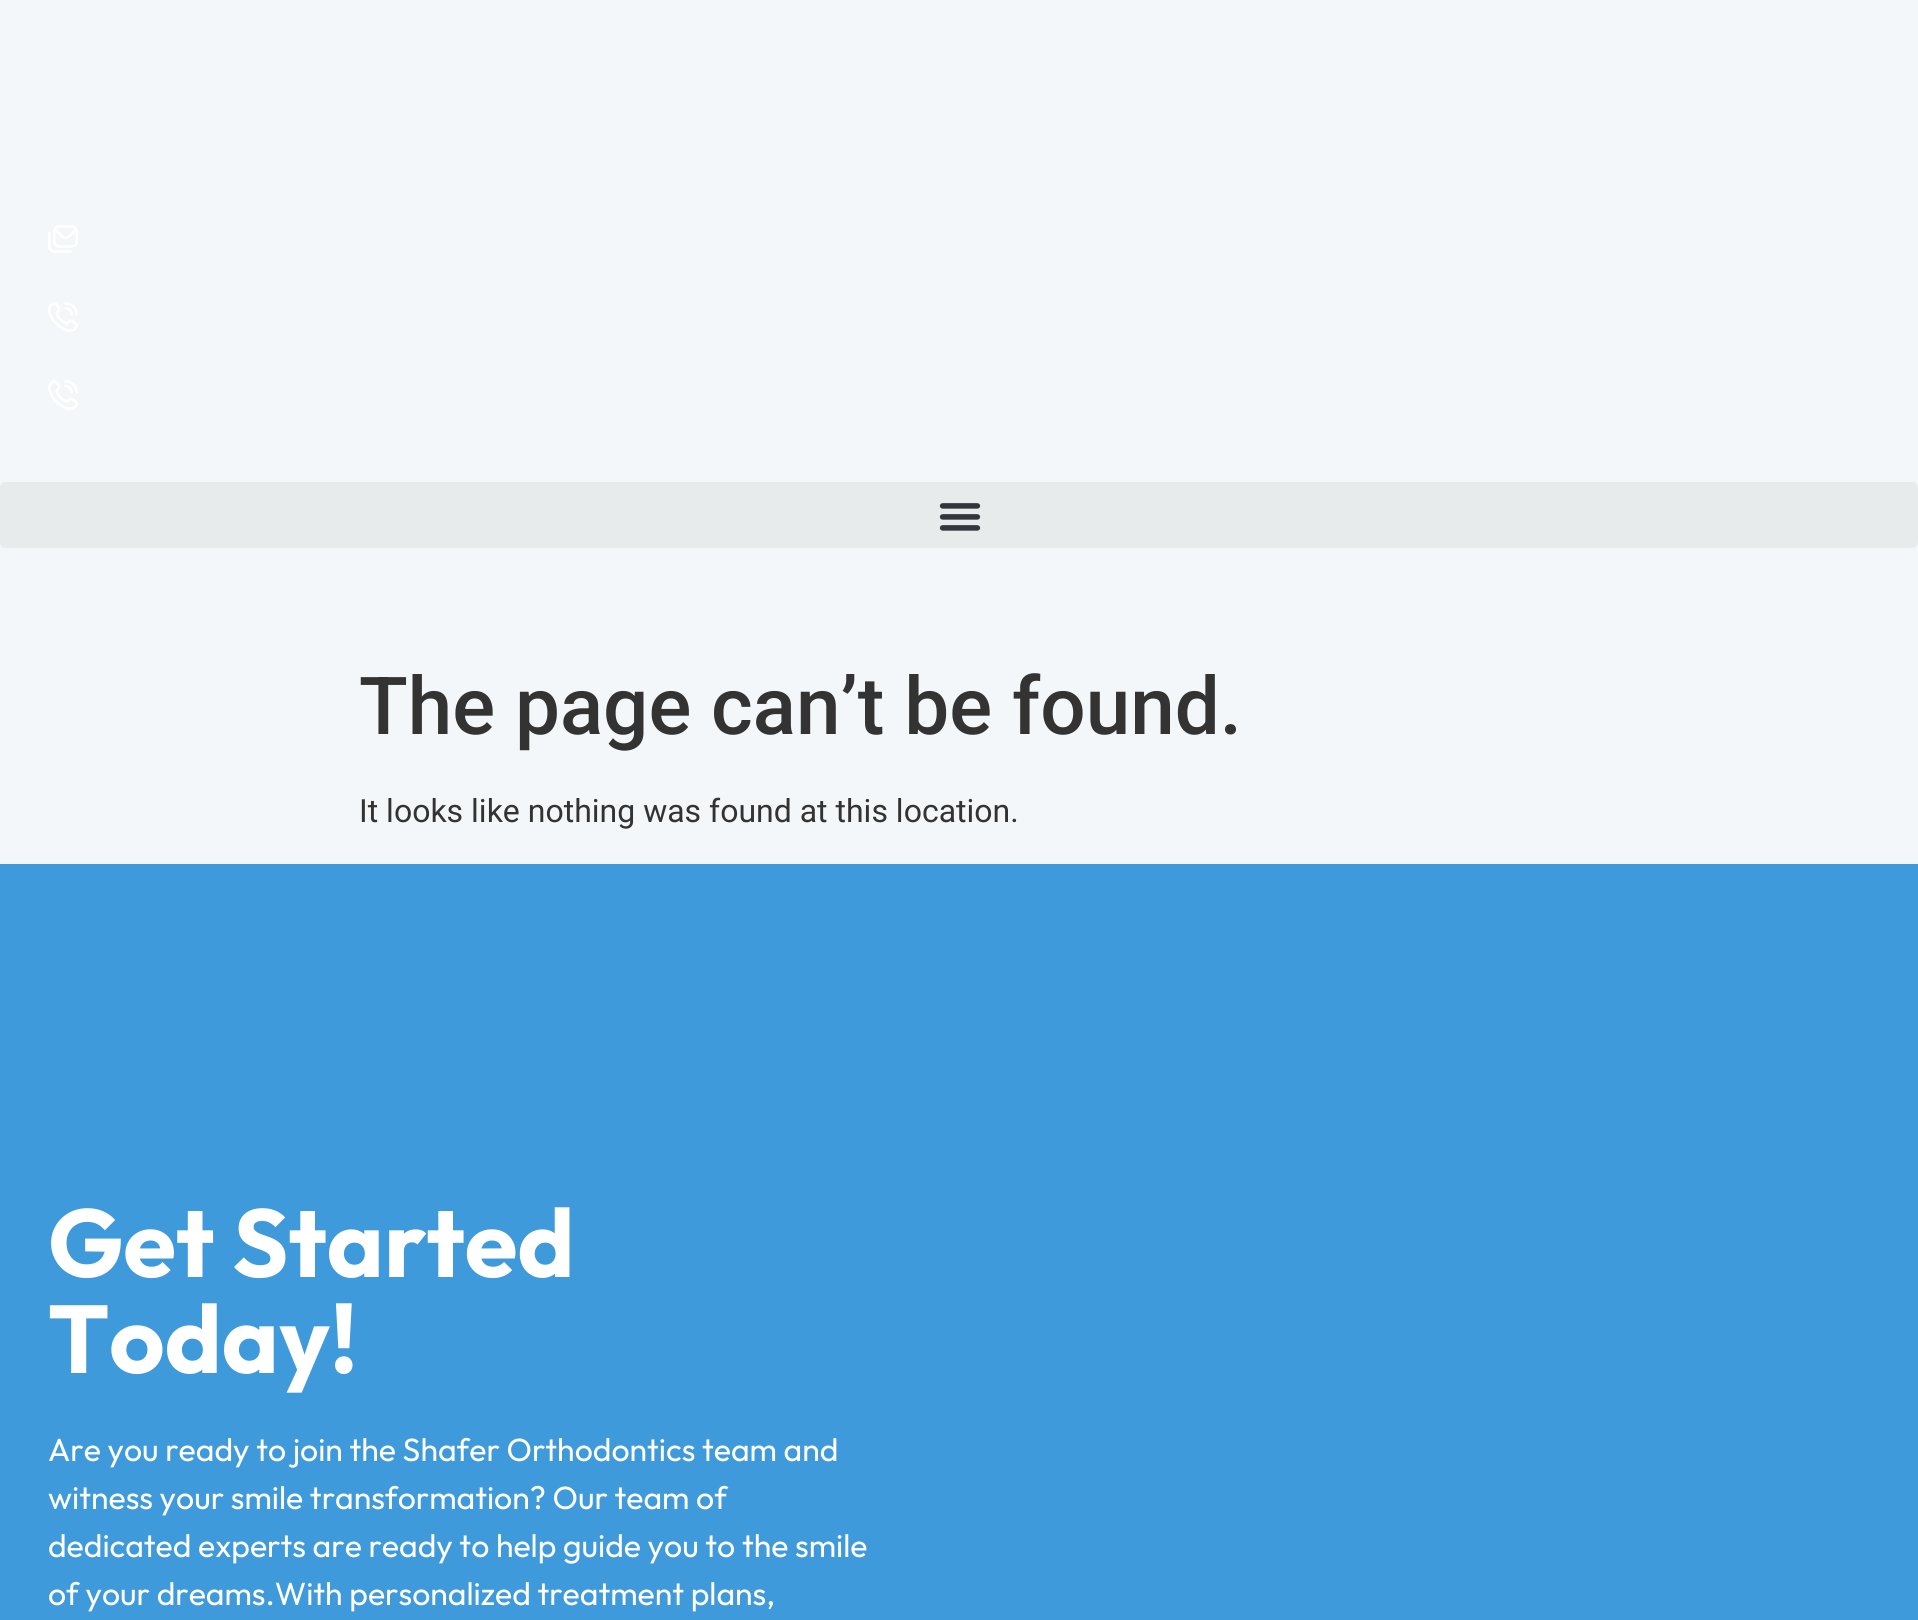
import math
import cairo

surface = cairo.ImageSurface(cairo.Format.RGB24, 1918, 1620)
ctx = cairo.Context(surface)
options = cairo.FontOptions()
options.set_hint_metrics(cairo.HintMetrics.OFF)
options.set_hint_style(cairo.HintStyle.NONE)
ctx.set_font_options(options)
ctx.set_miter_limit(4)


def ink(r, g, b):
    ctx.set_source_rgb(r / 255, g / 255, b / 255)


def write(x, y, s, family, size, color, bold=False, italic=False):
    ctx.select_font_face(family, cairo.FontSlant.ITALIC if italic else cairo.FontSlant.NORMAL, cairo.FontWeight.BOLD if bold else cairo.FontWeight.NORMAL)
    ctx.set_font_size(size)
    ink(*color)
    ctx.move_to(x, y)
    ctx.show_text(s)


def block(x, y, w, h, *color):
    ink(*color)
    ctx.rectangle(x, y, w, h)
    ctx.fill()


def round_path(x, y, w, h, r):
    ctx.new_sub_path()
    for i, (u, v) in enumerate([(x + w - r, y + h - r), (x + r, y + h - r), (x + r, y + r), (x + w - r, y + r)]):
        ctx.arc(u, v, r, i * math.pi / 2, (i + 1) * math.pi / 2)
    ctx.close_path()


def paste(path, x, y, w, h):
    ctx.save()
    ctx.set_source_surface(cairo.ImageSurface.create_from_png(path), x, y)
    ctx.rectangle(x, y, w, h)
    ctx.fill()
    ctx.restore()


s1 = dict(family="Roboto Medium", size=80, color=(51, 51, 51))
s2 = dict(family="Roboto", size=32, color=(51, 51, 51))
s3 = dict(family="Outfit", size=96, color=(255, 255, 255), bold=True)
s4 = dict(family="Outfit", size=32, color=(255, 255, 255))

ink(244, 247, 249)
ctx.paint()
paste("pic1.png", 48, 225, 30, 28)
paste("pic2.png", 48, 302, 30, 30)
paste("pic2.png", 48, 380, 30, 30)
ink(232, 235, 236)
round_path(0, 482, 1918, 66, 6)
ctx.fill()
paste("pic3.png", 939, 503, 42, 28)
write(359, 734, "The page can’t be found.", **s1)
write(359, 822, "It looks like nothing was found at this location.", **s2)
block(0, 864, 1918, 756, 63, 154, 220)
write(48, 1277, "Get Started", **s3)
write(48, 1373, "Today!", **s3)
write(48, 1461, "Are you ready to join the Shafer Orthodontics team and", **s4)
write(48, 1509, "witness your smile transformation? Our team of", **s4)
write(48, 1557, "dedicated experts are ready to help guide you to the smile", **s4)
write(48, 1605, "of your dreams.With personalized treatment plans,", **s4)
surface.write_to_png("screenshot.png")
